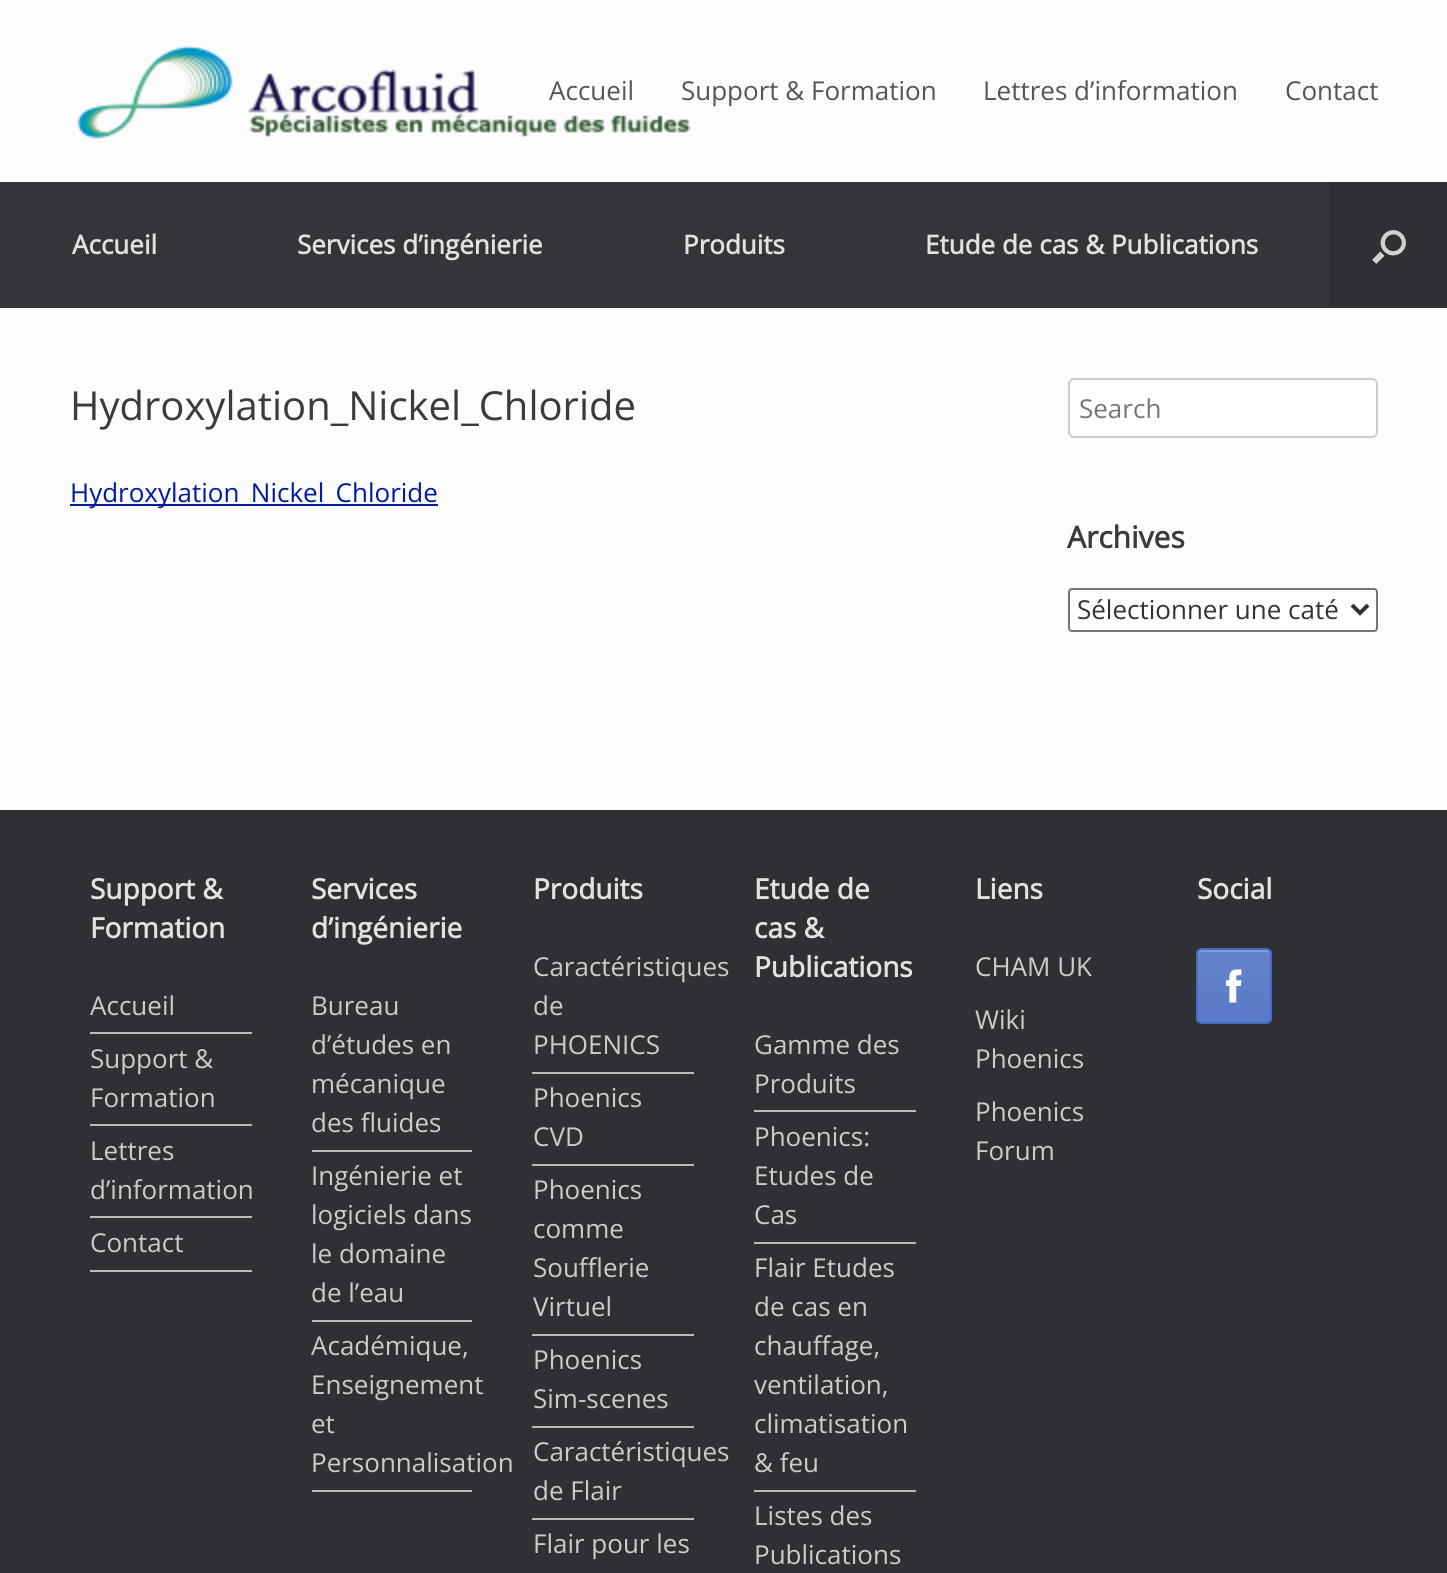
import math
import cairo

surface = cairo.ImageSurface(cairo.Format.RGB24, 1447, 1573)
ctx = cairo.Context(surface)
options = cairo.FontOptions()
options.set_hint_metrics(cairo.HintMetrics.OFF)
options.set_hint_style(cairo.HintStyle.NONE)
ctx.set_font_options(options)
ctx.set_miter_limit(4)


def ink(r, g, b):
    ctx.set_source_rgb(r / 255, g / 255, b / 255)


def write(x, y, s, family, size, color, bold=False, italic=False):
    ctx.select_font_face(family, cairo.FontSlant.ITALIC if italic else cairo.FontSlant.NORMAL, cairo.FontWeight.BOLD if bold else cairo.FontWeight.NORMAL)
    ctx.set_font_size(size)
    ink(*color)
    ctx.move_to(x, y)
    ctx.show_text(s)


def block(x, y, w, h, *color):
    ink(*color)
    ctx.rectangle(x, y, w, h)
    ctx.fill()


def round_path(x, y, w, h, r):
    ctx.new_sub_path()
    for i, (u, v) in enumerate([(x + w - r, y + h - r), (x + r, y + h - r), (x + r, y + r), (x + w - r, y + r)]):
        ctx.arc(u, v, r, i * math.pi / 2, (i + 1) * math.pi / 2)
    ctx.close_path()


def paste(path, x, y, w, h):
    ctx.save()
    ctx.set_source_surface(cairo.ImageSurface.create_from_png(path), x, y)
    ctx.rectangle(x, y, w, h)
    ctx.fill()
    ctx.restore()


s1 = dict(family="Open Sans", size=26, color=(85, 85, 85))
s2 = dict(family="Open Sans", size=26, color=(226, 226, 226), bold=True)
s3 = dict(family="Open Sans", size=40, color=(59, 59, 59))
s4 = dict(family="Open Sans", size=26, color=(1, 27, 158))
s5 = dict(family="Open Sans", size=26, color=(117, 117, 117))
s6 = dict(family="Open Sans", size=30, color=(59, 59, 59), bold=True)
s7 = dict(family="Open Sans", size=26, color=(51, 51, 51))
s8 = dict(family="Open Sans", size=28, color=(226, 226, 226), bold=True)
s9 = dict(family="Open Sans", size=26, color=(204, 204, 204))

ink(47, 48, 51)
ctx.paint()
block(0, 0, 1447, 182, 252, 252, 252)
paste("pic1.png", 77, 45, 614, 94)
write(549, 100, "Accueil", **s1)
write(681, 100, "Support & Formation", **s1)
write(983, 100, "Lettres d’information", **s1)
write(1285, 100, "Contact", **s1)
block(0, 182, 1330, 126, 52, 53, 56)
write(72, 254, "Accueil", **s2)
write(297, 254, "Services d’ingénierie", **s2)
write(683, 254, "Produits", **s2)
write(925, 254, "Etude de cas & Publications", **s2)
paste("pic2.png", 1372, 230, 34, 34)
block(0, 308, 1447, 502, 252, 252, 252)
write(70, 420, "Hydroxylation_Nickel_Chloride", **s3)
block(70, 504, 368, 2, 1, 27, 158)
write(70, 502, "Hydroxylation_Nickel_Chloride", **s4)
ink(255, 255, 255)
round_path(1069, 379, 308, 58, 5)
ctx.fill_preserve()
ink(204, 204, 204)
ctx.stroke()
write(1079, 418, "Search", **s5)
write(1067, 548, "Archives", **s6)
ink(255, 255, 255)
round_path(1069, 589, 308, 42, 3)
ctx.fill_preserve()
ink(118, 118, 118)
ctx.stroke()
ctx.new_path()
ctx.move_to(1352, 605)
ctx.line_to(1360, 613)
ctx.line_to(1368, 605)
ink(51, 51, 51)
ctx.set_line_width(4)
ctx.stroke()
write(1077, 619, "Sélectionner une caté", **s7)
write(90, 899, "Support &", **s8)
write(90, 938, "Formation", **s8)
block(90, 1032, 162, 2, 185, 185, 185)
write(90, 1015, "Accueil", **s9)
block(90, 1124, 162, 2, 185, 185, 185)
write(90, 1068, "Support &", **s9)
write(90, 1107, "Formation", **s9)
block(90, 1216, 162, 2, 185, 185, 185)
write(90, 1160, "Lettres", **s9)
write(90, 1199, "d’information", **s9)
block(90, 1270, 162, 2, 185, 185, 185)
write(90, 1252, "Contact", **s9)
write(311, 899, "Services", **s8)
write(311, 938, "d’ingénierie", **s8)
block(312, 1150, 160, 2, 185, 185, 185)
write(311, 1015, "Bureau", **s9)
write(311, 1054, "d’études en", **s9)
write(311, 1093, "mécanique", **s9)
write(311, 1132, "des fluides", **s9)
block(312, 1320, 160, 2, 185, 185, 185)
write(311, 1185, "Ingénierie et", **s9)
write(311, 1224, "logiciels dans", **s9)
write(311, 1263, "le domaine", **s9)
write(311, 1302, "de l’eau", **s9)
block(312, 1490, 160, 2, 185, 185, 185)
write(311, 1355, "Académique,", **s9)
write(311, 1394, "Enseignement", **s9)
write(311, 1433, "et", **s9)
write(311, 1472, "Personnalisation", **s9)
write(533, 899, "Produits", **s8)
block(532, 1072, 162, 2, 185, 185, 185)
write(533, 976, "Caractéristiques", **s9)
write(533, 1015, "de", **s9)
write(533, 1054, "PHOENICS", **s9)
block(532, 1164, 162, 2, 185, 185, 185)
write(533, 1107, "Phoenics", **s9)
write(533, 1146, "CVD", **s9)
block(532, 1334, 162, 2, 185, 185, 185)
write(533, 1199, "Phoenics", **s9)
write(533, 1238, "comme", **s9)
write(533, 1277, "Soufflerie", **s9)
write(533, 1316, "Virtuel", **s9)
block(532, 1426, 162, 2, 185, 185, 185)
write(533, 1369, "Phoenics", **s9)
write(533, 1408, "Sim-scenes", **s9)
block(532, 1518, 162, 2, 185, 185, 185)
write(533, 1461, "Caractéristiques", **s9)
write(533, 1500, "de Flair", **s9)
write(533, 1553, "Flair pour les", **s9)
write(754, 899, "Etude de", **s8)
write(754, 938, "cas &", **s8)
write(754, 977, "Publications", **s8)
block(754, 1110, 162, 2, 185, 185, 185)
write(754, 1054, "Gamme des", **s9)
write(754, 1093, "Produits", **s9)
block(754, 1242, 162, 2, 185, 185, 185)
write(754, 1146, "Phoenics:", **s9)
write(754, 1185, "Etudes de", **s9)
write(754, 1224, "Cas", **s9)
block(754, 1490, 162, 2, 185, 185, 185)
write(754, 1277, "Flair Etudes", **s9)
write(754, 1316, "de cas en", **s9)
write(754, 1355, "chauffage,", **s9)
write(754, 1394, "ventilation,", **s9)
write(754, 1433, "climatisation", **s9)
write(754, 1472, "& feu", **s9)
write(754, 1525, "Listes des", **s9)
write(754, 1564, "Publications", **s9)
write(975, 899, "Liens", **s8)
write(975, 976, "CHAM UK", **s9)
write(975, 1029, "Wiki", **s9)
write(975, 1068, "Phoenics", **s9)
write(975, 1121, "Phoenics", **s9)
write(975, 1160, "Forum", **s9)
write(1197, 899, "Social", **s8)
ctx.save()
round_path(1196, 948, 76, 76, 6)
ctx.clip()
gradient = cairo.LinearGradient(1198, 1022, 1198, 950)
gradient.add_color_stop_rgba(0, 0.349, 0.478, 0.78, 1)
gradient.add_color_stop_rgba(1, 0.392, 0.514, 0.796, 1)
ctx.set_source(gradient)
ctx.rectangle(1196, 950, 76, 72)
ctx.fill()
ctx.restore()
ink(131, 156, 213)
ctx.new_path()
ctx.move_to(1202, 952)
ctx.line_to(1266, 952)
ctx.curve_to(1268, 952, 1270, 954, 1270, 956)
ctx.curve_to(1270, 947, 1263, 950, 1255, 950)
ctx.line_to(1213, 950)
ctx.curve_to(1205, 950, 1198, 947, 1198, 956)
ctx.curve_to(1198, 954, 1200, 952, 1202, 952)
ctx.close_path()
ctx.fill()
round_path(1197, 949, 74, 74, 5)
ink(70, 107, 193)
ctx.set_line_width(2)
ctx.stroke()
paste("pic3.png", 1226, 969, 16, 34)
surface.write_to_png("screenshot.png")
